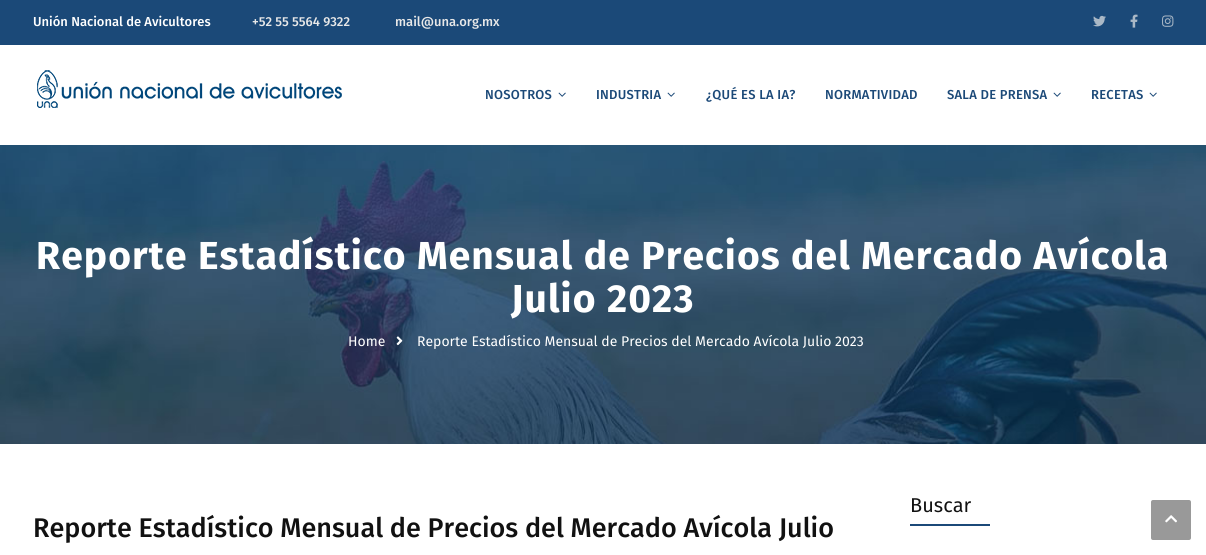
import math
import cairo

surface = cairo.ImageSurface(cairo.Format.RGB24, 1206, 555)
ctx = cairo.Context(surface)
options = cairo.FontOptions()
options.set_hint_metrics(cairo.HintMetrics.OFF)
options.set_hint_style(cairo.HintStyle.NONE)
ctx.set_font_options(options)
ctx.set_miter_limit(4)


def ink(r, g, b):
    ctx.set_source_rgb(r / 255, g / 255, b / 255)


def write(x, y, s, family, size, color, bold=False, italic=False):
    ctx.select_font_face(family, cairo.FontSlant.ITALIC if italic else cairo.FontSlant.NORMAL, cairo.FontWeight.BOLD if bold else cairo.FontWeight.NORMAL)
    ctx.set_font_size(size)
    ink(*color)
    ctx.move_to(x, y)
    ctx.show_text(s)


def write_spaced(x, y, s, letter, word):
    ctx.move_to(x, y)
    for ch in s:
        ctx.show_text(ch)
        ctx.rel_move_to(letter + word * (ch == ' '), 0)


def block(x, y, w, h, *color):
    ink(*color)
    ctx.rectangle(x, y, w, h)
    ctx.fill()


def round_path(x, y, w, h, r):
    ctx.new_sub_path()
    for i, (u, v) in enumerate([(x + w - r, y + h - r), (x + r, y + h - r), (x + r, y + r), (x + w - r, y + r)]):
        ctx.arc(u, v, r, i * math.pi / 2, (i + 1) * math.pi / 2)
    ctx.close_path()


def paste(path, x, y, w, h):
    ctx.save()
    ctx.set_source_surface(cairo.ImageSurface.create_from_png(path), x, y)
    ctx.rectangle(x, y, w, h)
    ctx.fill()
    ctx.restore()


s1 = dict(family="Fira Sans Medium", size=13, color=(255, 255, 255))
s2 = dict(family="Fira Sans Medium", size=13, color=(232, 232, 232))
s3 = dict(family="Fira Sans", size=14, color=(255, 255, 255))
s4 = dict(family="Fira Sans", size=20, color=(17, 17, 17))
s5 = dict(family="Fira Sans Medium", size=27, color=(17, 17, 17))

ink(255, 255, 255)
ctx.paint()
block(0, 0, 1206, 45, 27, 73, 120)
write(33, 26, "Unión Nacional de Avicultores", **s1)
write(252, 26, "+52 55 5564 9322", **s2)
write(395, 26, "mail@una.org.mx", **s2)
paste("pic1.png", 1093, 15, 13, 12)
paste("pic2.png", 1130, 14, 8, 14)
paste("pic3.png", 1162, 15, 12, 12)
paste("pic4.png", 37, 70, 305, 38)
ink(27, 73, 120)
write_spaced(485, 99, "NOSOTROS", 0.25, 0)
paste("pic5.png", 558, 92, 8, 5)
write_spaced(596, 99, "INDUSTRIA", 0.25, 0)
paste("pic5.png", 667, 92, 8, 5)
write_spaced(706, 99, "¿QUÉ ES LA IA?", 0.25, 0)
write_spaced(825, 99, "NORMATIVIDAD", 0.25, 0)
write_spaced(947, 99, "SALA DE PRENSA", 0.25, 0)
paste("pic5.png", 1053, 92, 8, 5)
write_spaced(1091, 99, "RECETAS", 0.25, 0)
paste("pic5.png", 1149, 92, 8, 5)
paste("pic6.png", 0, 145, 1206, 299)
ctx.select_font_face("Fira Sans", cairo.FontSlant.NORMAL, cairo.FontWeight.BOLD)
ctx.set_font_size(39)
ink(255, 255, 255)
write_spaced(36, 269, "Reporte Estadístico Mensual de Precios del Mercado Avícola", 1.1, 0)
write_spaced(511, 312, "Julio 2023", 1.1, 0)
write(348, 346, "Home", **s3)
paste("pic7.png", 396, 336, 7, 10)
write(417, 346, "Reporte Estadístico Mensual de Precios del Mercado Avícola Julio 2023", **s3)
write(910, 512, "Buscar", **s4)
block(910, 524, 80, 2, 27, 73, 120)
write(33, 537, "Reporte Estadístico Mensual de Precios del Mercado Avícola Julio", **s5)
ink(153, 153, 153)
round_path(1151, 500, 40, 40, 2)
ctx.fill()
paste("pic8.png", 1165, 515, 12, 8)
surface.write_to_png("screenshot.png")
